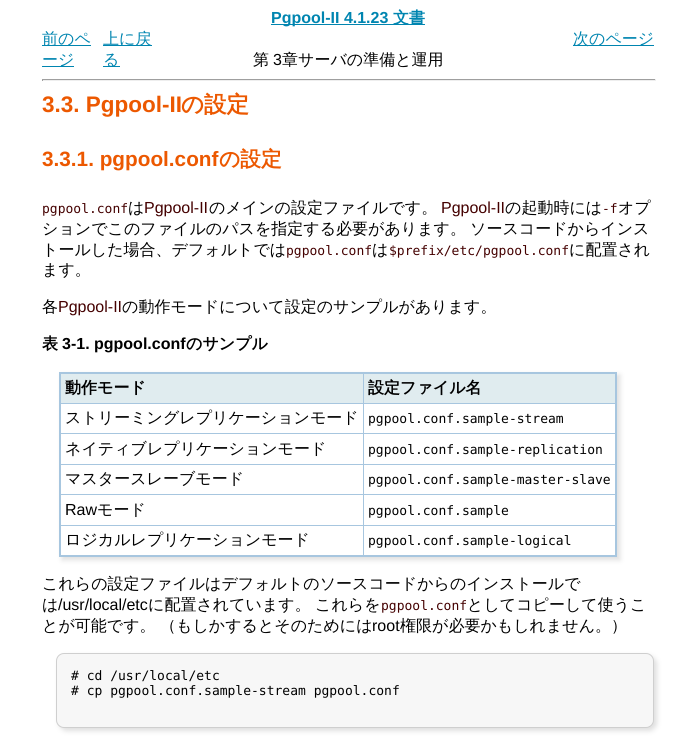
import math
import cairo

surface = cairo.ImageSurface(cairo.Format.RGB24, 696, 744)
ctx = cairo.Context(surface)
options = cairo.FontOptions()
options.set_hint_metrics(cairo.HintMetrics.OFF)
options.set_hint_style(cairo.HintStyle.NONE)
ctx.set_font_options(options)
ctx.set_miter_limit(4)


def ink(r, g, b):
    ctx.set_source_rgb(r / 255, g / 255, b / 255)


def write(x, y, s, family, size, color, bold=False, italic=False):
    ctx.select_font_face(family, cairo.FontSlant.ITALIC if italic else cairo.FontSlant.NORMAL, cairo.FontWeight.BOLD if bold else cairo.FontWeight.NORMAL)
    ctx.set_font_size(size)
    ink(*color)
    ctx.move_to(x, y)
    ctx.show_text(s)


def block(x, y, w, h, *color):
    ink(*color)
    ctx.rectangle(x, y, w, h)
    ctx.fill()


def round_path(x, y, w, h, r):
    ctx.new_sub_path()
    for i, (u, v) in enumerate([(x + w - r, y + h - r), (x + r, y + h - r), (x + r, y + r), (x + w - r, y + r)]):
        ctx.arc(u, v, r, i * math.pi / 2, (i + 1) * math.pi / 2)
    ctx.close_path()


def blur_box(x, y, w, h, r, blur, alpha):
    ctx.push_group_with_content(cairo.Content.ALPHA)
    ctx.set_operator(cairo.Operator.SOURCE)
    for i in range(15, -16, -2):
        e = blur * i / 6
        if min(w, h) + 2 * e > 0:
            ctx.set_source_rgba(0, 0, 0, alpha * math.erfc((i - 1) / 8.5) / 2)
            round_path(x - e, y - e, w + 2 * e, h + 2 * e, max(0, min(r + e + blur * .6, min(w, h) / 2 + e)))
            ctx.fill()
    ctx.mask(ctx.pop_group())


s1 = dict(family="Liberation Sans", size=16, color=(0, 133, 176), bold=True)
s2 = dict(family="WenQuanYi Zen Hei", size=16, color=(0, 133, 176), bold=True)
s3 = dict(family="WenQuanYi Zen Hei Medium", size=16, color=(0, 133, 176))
s4 = dict(family="WenQuanYi Zen Hei Medium", size=16, color=(0, 0, 0))
s5 = dict(family="Liberation Sans", size=16, color=(0, 0, 0))
s6 = dict(family="Liberation Sans", size=22.5, color=(236, 88, 0), bold=True)
s7 = dict(family="WenQuanYi Zen Hei", size=22.5, color=(236, 88, 0), bold=True)
s8 = dict(family="Liberation Sans", size=20.75, color=(236, 88, 0), bold=True)
s9 = dict(family="WenQuanYi Zen Hei", size=20.75, color=(236, 88, 0), bold=True)
s10 = dict(family="DejaVu Sans Mono", size=13, color=(68, 0, 0))
s11 = dict(family="Liberation Sans", size=16, color=(68, 0, 0))
s12 = dict(family="WenQuanYi Zen Hei", size=16, color=(0, 0, 0), bold=True)
s13 = dict(family="Liberation Sans", size=16, color=(0, 0, 0), bold=True)
s14 = dict(family="DejaVu Sans Mono", size=13, color=(0, 0, 0))

ink(255, 255, 255)
ctx.paint()
block(271, 24, 154, 1, 0, 133, 176)
write(271, 23, "Pgpool-II 4.1.23", **s1)
write(393, 23, "文書", **s2)
block(42, 45, 49, 1, 0, 133, 176)
write(42, 44, "前のペ", **s3)
block(42, 66, 32, 1, 0, 133, 176)
write(42, 65, "ージ", **s3)
block(103, 45, 49, 1, 0, 133, 176)
write(103, 44, "上に戻", **s3)
block(103, 66, 17, 1, 0, 133, 176)
write(103, 65, "る", **s3)
block(573, 45, 81, 1, 0, 133, 176)
write(573, 44, "次のページ", **s3)
write(253, 65, "第", **s4)
write(273, 65, "3", **s5)
write(282, 65, "章サーバの準備と運用", **s4)
block(42, 79, 614, 1, 159, 159, 159)
block(655, 79, 1, 2, 238, 238, 238)
block(42, 80, 614, 1, 238, 238, 238)
block(42, 79, 1, 2, 159, 159, 159)
write(42, 112, "3.3. Pgpool-II", **s6)
write(181, 112, "の設定", **s7)
write(42, 166, "3.3.1. pgpool.conf", **s8)
write(219, 166, "の設定", **s9)
write(42, 213, "pgpool.conf", **s10)
write(128, 213, "は", **s4)
write(144, 213, "Pgpool-II", **s11)
write(209, 213, "のメインの設定ファイルです。", **s4)
write(441, 213, "Pgpool-II", **s11)
write(505, 213, "の起動時には", **s4)
write(602, 213, "-f", **s10)
write(618, 213, "オプ", **s4)
write(42, 234, "ションでこのファイルのパスを指定する必要があります。", **s4)
write(470, 234, "ソースコードからインス", **s4)
write(42, 255, "トールした場合、デフォルトでは", **s4)
write(286, 255, "pgpool.conf", **s10)
write(372, 255, "は", **s4)
write(389, 255, "$prefix/etc/pgpool.conf", **s10)
write(569, 255, "に配置され", **s4)
write(42, 275, "ます。", **s4)
write(42, 312, "各", **s4)
write(58, 312, "Pgpool-II", **s11)
write(122, 312, "の動作モードについて設定のサンプルがあります。", **s4)
write(42, 349, "表", **s12)
write(62, 349, "3-1. pgpool.conf", **s13)
write(186, 349, "のサンプル", **s12)
ink(223, 223, 223)
blur_box(62, 375, 558, 185, 0, 2.5, 1)
block(61, 374, 554, 29, 224, 236, 239)
block(363, 403, 254, 1, 167, 198, 223)
block(363, 433, 254, 1, 167, 198, 223)
block(363, 464, 254, 1, 167, 198, 223)
block(363, 494, 254, 1, 167, 198, 223)
block(363, 525, 254, 1, 167, 198, 223)
block(363, 525, 1, 32, 167, 198, 223)
block(59, 525, 305, 1, 167, 198, 223)
block(363, 494, 1, 32, 167, 198, 223)
block(59, 494, 305, 1, 167, 198, 223)
block(363, 464, 1, 31, 167, 198, 223)
block(59, 464, 305, 1, 167, 198, 223)
block(363, 433, 1, 32, 167, 198, 223)
block(59, 433, 305, 1, 167, 198, 223)
block(363, 403, 1, 31, 167, 198, 223)
block(59, 403, 305, 1, 167, 198, 223)
block(363, 372, 1, 32, 167, 198, 223)
block(59, 372, 558, 2, 167, 198, 223)
block(615, 372, 2, 185, 167, 198, 223)
block(59, 555, 558, 2, 167, 198, 223)
block(59, 372, 2, 185, 167, 198, 223)
write(65, 393, "動作モード", **s12)
write(368, 393, "設定ファイル名", **s12)
block(61, 404, 302, 29, 255, 255, 255)
write(65, 423, "ストリーミングレプリケーションモード", **s4)
block(364, 404, 251, 29, 255, 255, 255)
write(368, 423, "pgpool.conf.sample-stream", **s14)
block(61, 434, 302, 30, 255, 255, 255)
write(65, 454, "ネイティブレプリケーションモード", **s4)
block(364, 434, 251, 30, 255, 255, 255)
write(368, 454, "pgpool.conf.sample-replication", **s14)
block(61, 465, 302, 29, 255, 255, 255)
write(65, 484, "マスタースレーブモード", **s4)
block(364, 465, 251, 29, 255, 255, 255)
write(368, 484, "pgpool.conf.sample-master-slave", **s14)
block(61, 495, 302, 30, 255, 255, 255)
write(65, 515, "Raw", **s5)
write(97, 515, "モード", **s4)
block(364, 495, 251, 30, 255, 255, 255)
write(368, 515, "pgpool.conf.sample", **s14)
block(61, 526, 302, 29, 255, 255, 255)
write(65, 545, "ロジカルレプリケーションモード", **s4)
block(364, 526, 251, 29, 255, 255, 255)
write(368, 545, "pgpool.conf.sample-logical", **s14)
write(42, 589, "これらの設定ファイルはデフォルトのソースコードからのインストールで", **s4)
write(42, 610, "は", **s4)
write(58, 610, "/usr/local/etc", **s5)
write(148, 610, "に配置されています。", **s4)
write(315, 610, "これらを", **s4)
write(381, 610, "pgpool.conf", **s10)
write(467, 610, "としてコピーして使うこ", **s4)
write(42, 631, "とが可能です。", **s4)
write(160, 631, "（もしかするとそのためには", **s4)
write(372, 631, "root", **s5)
write(400, 631, "権限が必要かもしれません。）", **s4)
ink(223, 223, 223)
blur_box(59, 656, 598, 75, 8, 2.5, 1)
ink(247, 247, 247)
round_path(56.5, 653.5, 597, 74, 7.5)
ctx.fill_preserve()
ink(207, 207, 207)
ctx.set_line_width(1)
ctx.stroke()
write(71, 680, "# cd /usr/local/etc", **s14)
write(71, 695, "# cp pgpool.conf.sample-stream pgpool.conf", **s14)
surface.write_to_png("screenshot.png")
